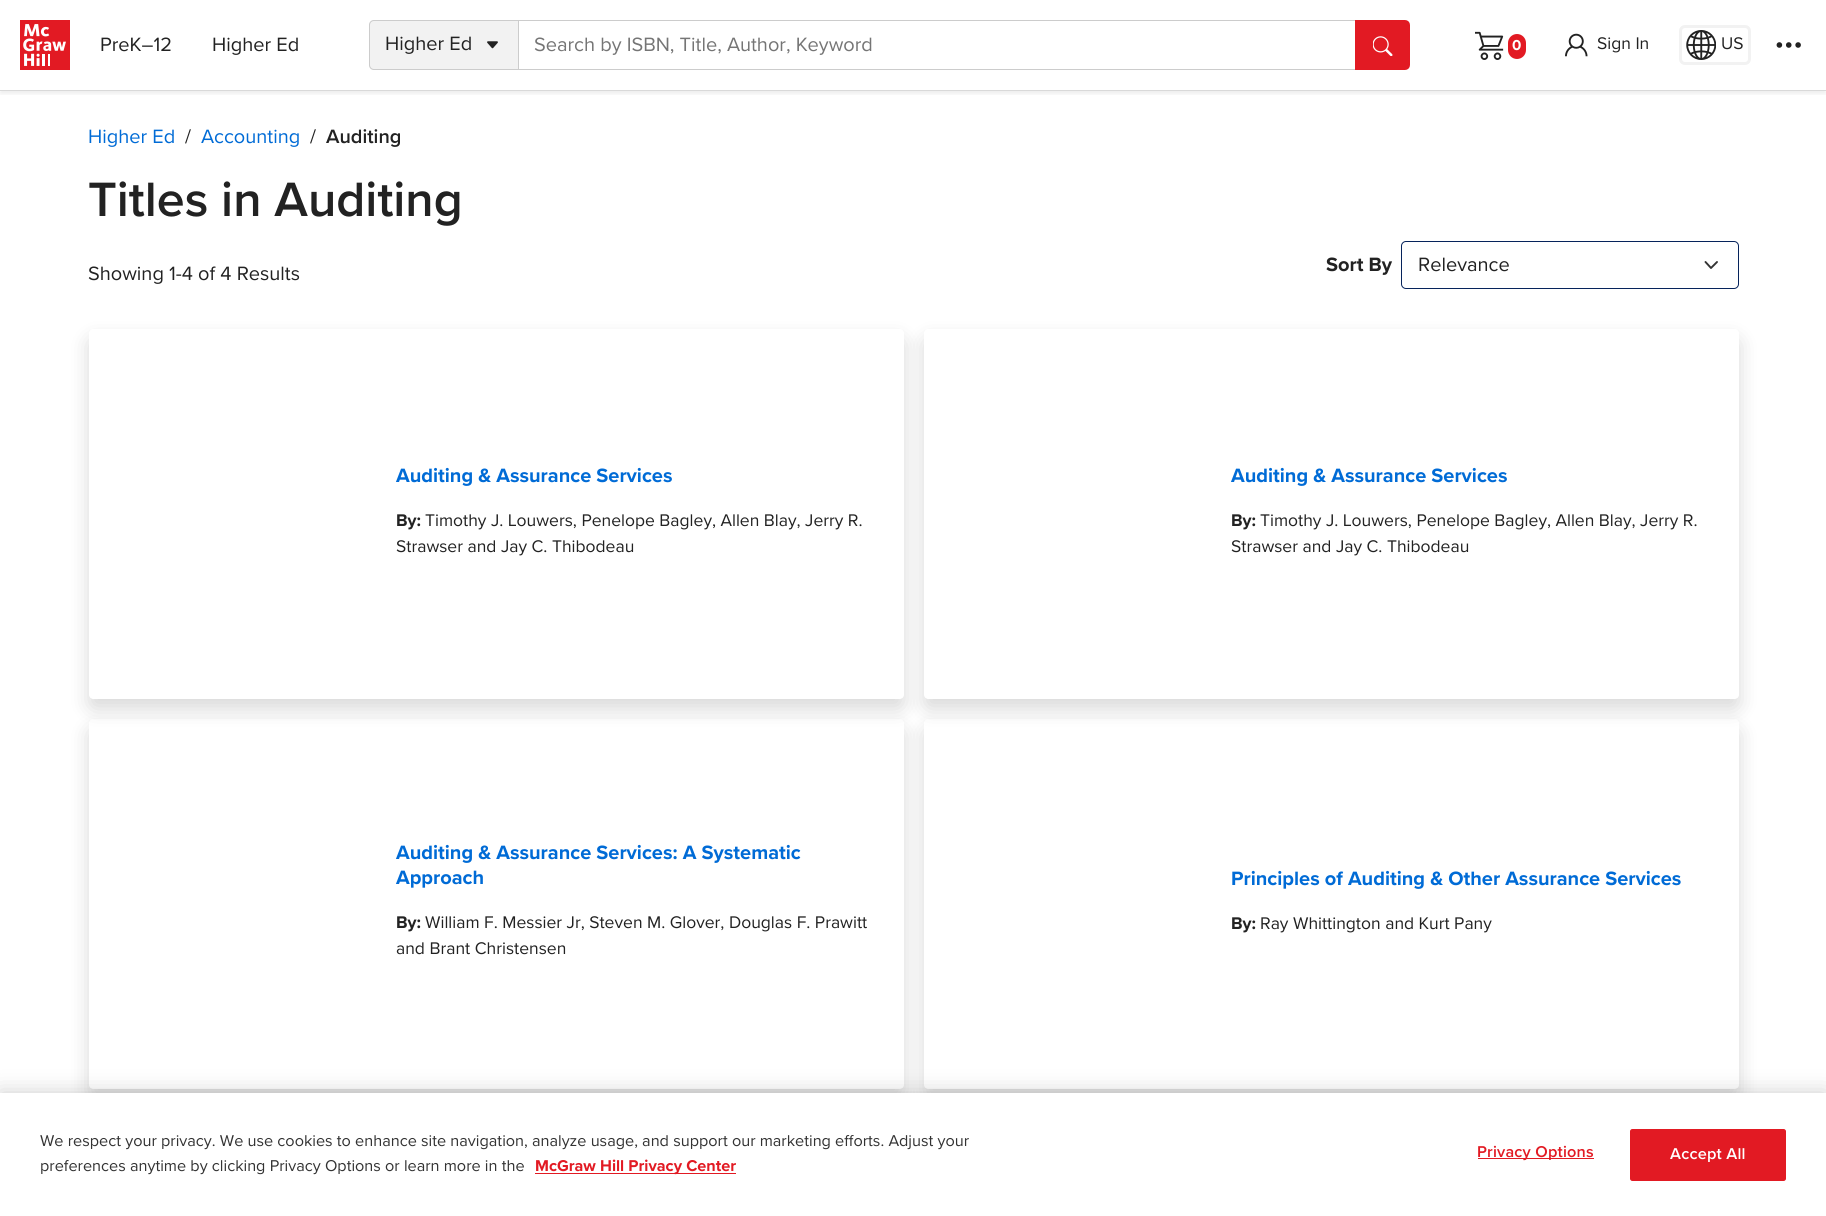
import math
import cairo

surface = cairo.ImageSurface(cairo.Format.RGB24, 1826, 1216)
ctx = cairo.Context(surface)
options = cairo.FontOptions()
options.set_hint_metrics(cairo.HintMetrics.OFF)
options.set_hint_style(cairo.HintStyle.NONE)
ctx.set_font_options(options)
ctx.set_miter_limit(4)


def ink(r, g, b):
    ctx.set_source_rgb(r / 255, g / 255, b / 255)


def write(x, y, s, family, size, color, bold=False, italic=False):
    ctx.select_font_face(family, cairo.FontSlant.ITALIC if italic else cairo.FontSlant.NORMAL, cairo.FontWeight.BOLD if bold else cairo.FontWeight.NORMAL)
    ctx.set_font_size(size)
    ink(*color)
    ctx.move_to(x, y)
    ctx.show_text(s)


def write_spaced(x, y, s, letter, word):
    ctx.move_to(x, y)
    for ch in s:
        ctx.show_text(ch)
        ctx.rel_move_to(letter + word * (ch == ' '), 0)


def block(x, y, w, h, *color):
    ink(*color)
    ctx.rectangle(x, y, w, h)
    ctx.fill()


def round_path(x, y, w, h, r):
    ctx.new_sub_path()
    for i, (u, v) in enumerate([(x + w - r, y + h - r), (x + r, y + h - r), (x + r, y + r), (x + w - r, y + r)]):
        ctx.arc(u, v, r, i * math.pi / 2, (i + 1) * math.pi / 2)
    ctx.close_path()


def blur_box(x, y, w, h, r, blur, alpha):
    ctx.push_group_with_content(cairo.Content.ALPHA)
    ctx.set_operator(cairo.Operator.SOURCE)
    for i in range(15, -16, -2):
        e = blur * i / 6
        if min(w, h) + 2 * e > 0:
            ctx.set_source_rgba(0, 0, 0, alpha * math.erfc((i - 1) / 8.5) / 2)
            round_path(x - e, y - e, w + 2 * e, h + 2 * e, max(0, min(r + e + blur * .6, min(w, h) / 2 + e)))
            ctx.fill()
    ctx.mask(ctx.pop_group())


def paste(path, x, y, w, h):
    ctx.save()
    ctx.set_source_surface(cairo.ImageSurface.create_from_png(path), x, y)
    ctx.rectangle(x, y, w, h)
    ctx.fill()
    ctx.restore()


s1 = dict(family="Proxima Nova", size=20, color=(34, 34, 34))
s2 = dict(family="Proxima Nova", size=20, color=(117, 117, 117))
s3 = dict(family="Proxima Nova", size=15, color=(255, 255, 255), bold=True)
s4 = dict(family="Proxima Nova", size=17.5, color=(34, 34, 34))
s5 = dict(family="Proxima Nova", size=20, color=(0, 107, 214))
s6 = dict(family="Proxima Nova SemiBold", size=20, color=(34, 34, 34))
s7 = dict(family="Proxima Nova SemiBold", size=50, color=(34, 34, 34))
s8 = dict(family="Proxima Nova", size=20, color=(34, 34, 34), bold=True)
s9 = dict(family="Proxima Nova", size=20, color=(0, 107, 214), bold=True)
s10 = dict(family="Proxima Nova", size=17.5, color=(34, 34, 34), bold=True)
s11 = dict(family="Proxima Nova", size=16.25, color=(51, 51, 51))
s12 = dict(family="Proxima Nova", size=16.25, color=(226, 26, 35), bold=True)

ink(255, 255, 255)
ctx.paint()
ctx.save()
ctx.rectangle(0, 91, 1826, 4)
ctx.clip()
ink(0, 0, 0)
blur_box(0, 3, 1826, 91, 0, 2.5, 0.07)
ctx.restore()
block(0, 90, 1826, 1, 217, 217, 217)
paste("pic1.png", 20, 20, 50, 50)
write(100, 51, "PreK–12", **s1)
write(212, 51, "Higher Ed", **s1)
ink(242, 242, 242)
ctx.new_path()
ctx.move_to(374, 20)
ctx.line_to(519, 20)
ctx.line_to(519, 70)
ctx.line_to(374, 70)
ctx.curve_to(371, 70, 369, 68, 369, 65)
ctx.line_to(369, 25)
ctx.curve_to(369, 22, 371, 20, 374, 20)
ctx.close_path()
ctx.fill()
paste("pic2.png", 487, 41, 11, 8)
ctx.new_path()
ctx.move_to(374, 20.5)
ctx.line_to(518.5, 20.5)
ctx.line_to(518.5, 69.5)
ctx.line_to(374, 69.5)
ctx.curve_to(371.5, 69.5, 369.5, 67.5, 369.5, 65)
ctx.line_to(369.5, 25)
ctx.curve_to(369.5, 22.5, 371.5, 20.5, 374, 20.5)
ctx.close_path()
ink(204, 204, 204)
ctx.set_line_width(1)
ctx.stroke()
write(385, 50, "Higher Ed", **s1)
ctx.rectangle(518.5, 20.5, 837, 49)
ink(204, 204, 204)
ctx.stroke()
write(534, 51, "Search by ISBN, Title, Author, Keyword", **s2)
ink(226, 26, 35)
ctx.new_path()
ctx.move_to(1356.5, 21.5)
ctx.line_to(1405, 21.5)
ctx.curve_to(1407, 21.5, 1408.5, 23, 1408.5, 25)
ctx.line_to(1408.5, 65)
ctx.curve_to(1408.5, 67, 1407, 68.5, 1405, 68.5)
ctx.line_to(1356.5, 68.5)
ctx.close_path()
ctx.fill_preserve()
ctx.set_line_width(3)
ctx.stroke()
paste("pic3.png", 1373, 36, 20, 20)
paste("pic4.png", 1475, 31, 29, 29)
round_path(1508, 34, 18, 25, 9)
ctx.fill()
write(1512, 50, "0", **s3)
paste("pic5.png", 1565, 33, 23, 24)
write(1597, 49, "Sign In", **s4)
round_path(1680.5, 26.5, 69, 37, 4.5)
ink(242, 242, 242)
ctx.stroke()
paste("pic6.png", 1686, 30, 30, 30)
write(1721, 49, "US", **s4)
paste("pic7.png", 1776, 42, 25, 6)
write(88, 143, "Higher Ed", **s5)
write(185, 143, "/", **s1)
write(201, 143, "Accounting", **s5)
write(310, 143, "/", **s1)
write(326, 143, "Auditing", **s6)
write(88, 216, "Titles in Auditing", **s7)
write(88, 280, "Showing 1-4 of 4 Results", **s1)
write(1326, 271, "Sort By", **s8)
ctx.new_path()
ctx.move_to(1705.5, 262)
ctx.line_to(1711, 268)
ctx.line_to(1717, 262)
ink(51, 51, 51)
ctx.set_line_width(1.9)
ctx.set_line_cap(cairo.LineCap.ROUND)
ctx.set_line_join(cairo.LineJoin.ROUND)
ctx.stroke()
round_path(1401.5, 241.5, 337, 47, 4.5)
ink(6, 35, 91)
ctx.set_line_width(1)
ctx.set_line_cap(cairo.LineCap.BUTT)
ctx.set_line_join(cairo.LineJoin.MITER)
ctx.stroke()
write(1418, 271, "Relevance", **s1)
ctx.save()
ctx.set_fill_rule(cairo.FillRule.EVEN_ODD)
ctx.new_path()
ctx.move_to(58, 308)
ctx.line_to(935, 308)
ctx.line_to(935, 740)
ctx.line_to(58, 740)
ctx.close_path()
ctx.move_to(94, 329)
ctx.line_to(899, 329)
ctx.curve_to(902, 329, 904, 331, 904, 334)
ctx.line_to(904, 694)
ctx.curve_to(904, 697, 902, 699, 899, 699)
ctx.line_to(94, 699)
ctx.curve_to(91, 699, 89, 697, 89, 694)
ctx.line_to(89, 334)
ctx.curve_to(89, 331, 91, 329, 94, 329)
ctx.close_path()
ctx.clip()
ink(0, 0, 0)
blur_box(89, 339, 815, 370, 5, 10, 0.15)
ctx.restore()
write(396, 482, "Auditing & Assurance Services", **s9)
write(396, 526, "By:", **s10)
write(425, 526, "Timothy J. Louwers, Penelope Bagley, Allen Blay, Jerry R.", **s4)
write(396, 552, "Strawser and Jay C. Thibodeau", **s4)
ctx.save()
ctx.set_fill_rule(cairo.FillRule.EVEN_ODD)
ctx.new_path()
ctx.move_to(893, 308)
ctx.line_to(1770, 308)
ctx.line_to(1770, 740)
ctx.line_to(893, 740)
ctx.close_path()
ctx.move_to(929, 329)
ctx.line_to(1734, 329)
ctx.curve_to(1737, 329, 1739, 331, 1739, 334)
ctx.line_to(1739, 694)
ctx.curve_to(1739, 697, 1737, 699, 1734, 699)
ctx.line_to(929, 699)
ctx.curve_to(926, 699, 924, 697, 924, 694)
ctx.line_to(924, 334)
ctx.curve_to(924, 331, 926, 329, 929, 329)
ctx.close_path()
ctx.clip()
ink(0, 0, 0)
blur_box(924, 339, 815, 370, 5, 10, 0.15)
ctx.restore()
write(1231, 482, "Auditing & Assurance Services", **s9)
write(1231, 526, "By:", **s10)
write(1260, 526, "Timothy J. Louwers, Penelope Bagley, Allen Blay, Jerry R.", **s4)
write(1231, 552, "Strawser and Jay C. Thibodeau", **s4)
ctx.save()
ctx.set_fill_rule(cairo.FillRule.EVEN_ODD)
ctx.new_path()
ctx.move_to(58, 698)
ctx.line_to(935, 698)
ctx.line_to(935, 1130)
ctx.line_to(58, 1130)
ctx.close_path()
ctx.move_to(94, 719)
ctx.line_to(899, 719)
ctx.curve_to(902, 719, 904, 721, 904, 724)
ctx.line_to(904, 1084)
ctx.curve_to(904, 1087, 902, 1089, 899, 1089)
ctx.line_to(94, 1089)
ctx.curve_to(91, 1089, 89, 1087, 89, 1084)
ctx.line_to(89, 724)
ctx.curve_to(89, 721, 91, 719, 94, 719)
ctx.close_path()
ctx.clip()
ink(0, 0, 0)
blur_box(89, 729, 815, 370, 5, 10, 0.15)
ctx.restore()
write(396, 859, "Auditing & Assurance Services: A Systematic", **s9)
write(396, 884, "Approach", **s9)
write(396, 928, "By:", **s10)
write(425, 928, "William F. Messier Jr, Steven M. Glover, Douglas F. Prawitt", **s4)
write(396, 954, "and Brant Christensen", **s4)
ctx.save()
ctx.set_fill_rule(cairo.FillRule.EVEN_ODD)
ctx.new_path()
ctx.move_to(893, 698)
ctx.line_to(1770, 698)
ctx.line_to(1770, 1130)
ctx.line_to(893, 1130)
ctx.close_path()
ctx.move_to(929, 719)
ctx.line_to(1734, 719)
ctx.curve_to(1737, 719, 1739, 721, 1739, 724)
ctx.line_to(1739, 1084)
ctx.curve_to(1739, 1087, 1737, 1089, 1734, 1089)
ctx.line_to(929, 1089)
ctx.curve_to(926, 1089, 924, 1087, 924, 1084)
ctx.line_to(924, 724)
ctx.curve_to(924, 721, 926, 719, 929, 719)
ctx.close_path()
ctx.clip()
ink(0, 0, 0)
blur_box(924, 729, 815, 370, 5, 10, 0.15)
ctx.restore()
write(1231, 885, "Principles of Auditing & Other Assurance Services", **s9)
write(1231, 929, "By:", **s10)
write(1260, 929, "Ray Whittington and Kurt Pany", **s4)
ink(0, 0, 0)
blur_box(0, 1093, 1826, 123, 0, 11, 0.2)
block(0, 1093, 1826, 123, 255, 255, 255)
write(40, 1146, "We respect your privacy. We use cookies to enhance site navigation, analyze usage, and support our marketing efforts. Adjust your", **s11)
write(40, 1171, "preferences anytime by clicking Privacy Options or learn more in the", **s11)
block(535, 1173, 201, 1, 226, 26, 35)
write(535, 1171, "McGraw Hill Privacy Center", **s12)
block(1478, 1158, 116, 1, 226, 26, 35)
ctx.select_font_face("Proxima Nova SemiBold")
write_spaced(1477, 1157, "Privacy Options", 0.2, 0)
round_path(1630.5, 1129.5, 155, 51, 2)
ctx.fill_preserve()
ctx.stroke()
ink(255, 255, 255)
write_spaced(1670, 1159, "Accept All", 0.2, 0)
surface.write_to_png("screenshot.png")
